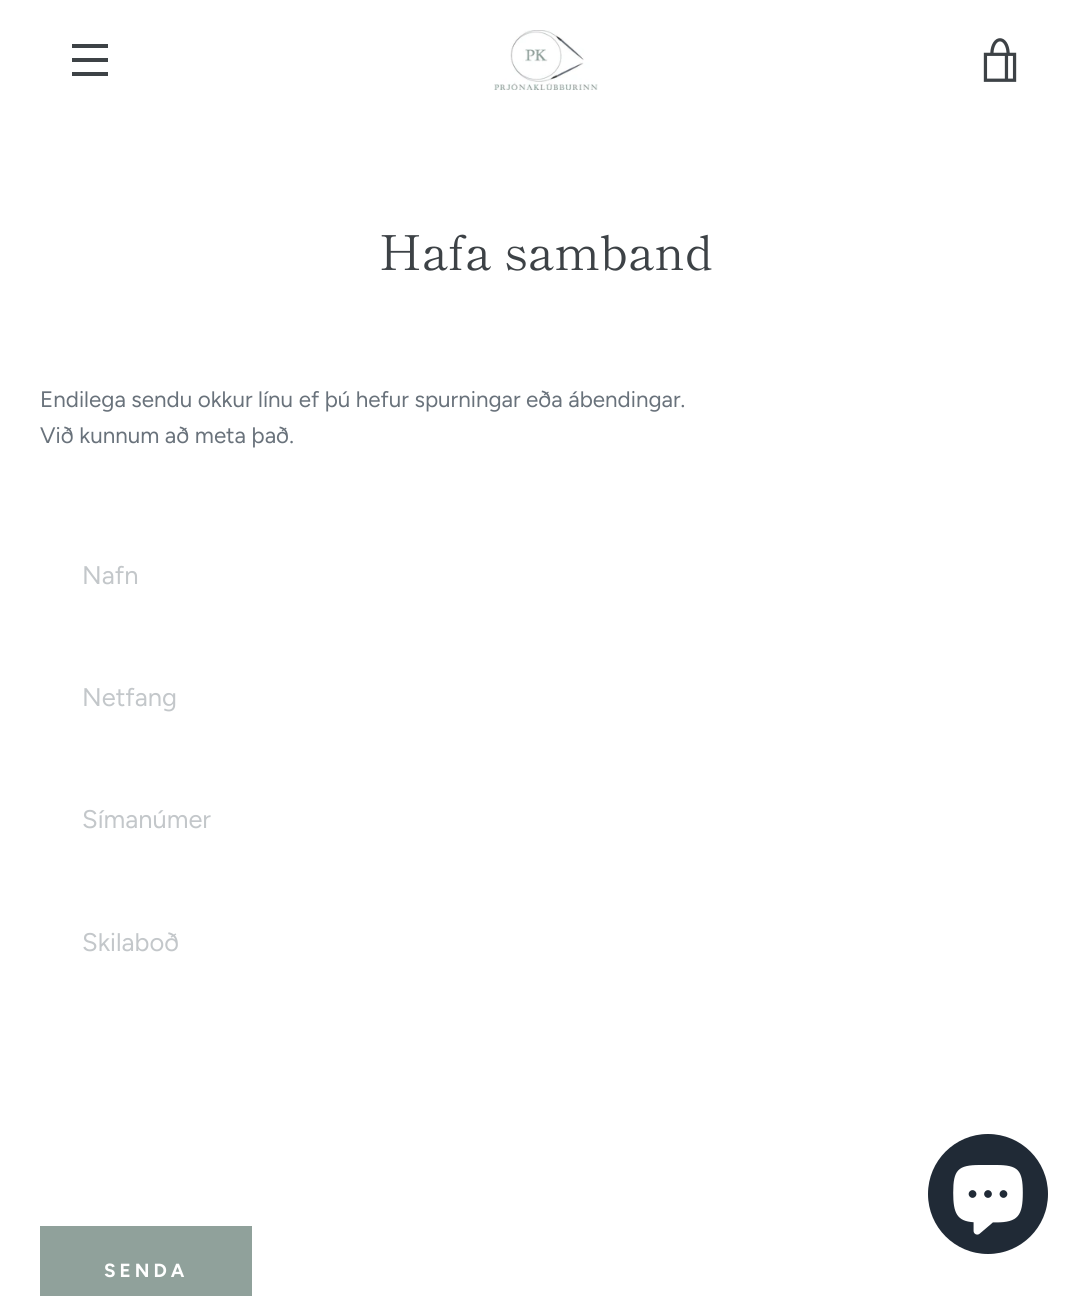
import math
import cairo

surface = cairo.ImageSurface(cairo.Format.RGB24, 1091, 1296)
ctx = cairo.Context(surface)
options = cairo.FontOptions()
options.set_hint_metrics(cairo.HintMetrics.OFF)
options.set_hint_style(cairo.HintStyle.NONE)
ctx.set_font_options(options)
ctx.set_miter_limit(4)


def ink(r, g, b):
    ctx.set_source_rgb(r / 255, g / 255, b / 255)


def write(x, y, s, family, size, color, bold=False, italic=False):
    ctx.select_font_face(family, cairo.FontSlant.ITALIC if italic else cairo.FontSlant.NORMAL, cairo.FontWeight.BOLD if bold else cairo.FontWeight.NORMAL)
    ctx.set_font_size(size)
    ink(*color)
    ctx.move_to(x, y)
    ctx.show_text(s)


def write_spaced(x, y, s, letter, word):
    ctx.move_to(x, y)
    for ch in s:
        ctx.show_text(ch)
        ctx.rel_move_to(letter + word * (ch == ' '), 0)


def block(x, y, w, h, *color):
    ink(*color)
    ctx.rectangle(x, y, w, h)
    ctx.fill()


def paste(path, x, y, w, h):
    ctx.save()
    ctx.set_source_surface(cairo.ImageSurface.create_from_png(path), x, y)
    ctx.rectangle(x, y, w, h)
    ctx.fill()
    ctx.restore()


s1 = dict(family="Shippori Mincho", size=48, color=(61, 66, 70))
s2 = dict(family="Figtree", size=22.4, color=(105, 114, 123))
s3 = dict(family="Figtree", size=25.5, color=(195, 199, 202))

ink(255, 255, 255)
ctx.paint()
block(72, 44, 36, 4, 61, 66, 70)
block(72, 58, 36, 4, 61, 66, 70)
block(72, 72, 36, 4, 61, 66, 70)
paste("pic1.png", 494, 30, 104, 60)
paste("pic2.png", 983, 38, 34, 44)
write(379, 270, "Hafa samband", **s1)
write(40, 407, "Endilega sendu okkur línu ef þú hefur spurningar eða ábendingar.", **s2)
write(40, 443, "Við kunnum að meta það.", **s2)
write(82, 584, "Nafn", **s3)
write(82, 706, "Netfang", **s3)
write(82, 828, "Símanúmer", **s3)
write(82, 951, "Skilaboð", **s3)
block(40, 1226, 212, 70, 144, 161, 155)
ctx.select_font_face("Figtree", cairo.FontSlant.NORMAL, cairo.FontWeight.BOLD)
ctx.set_font_size(19)
ink(255, 255, 255)
write_spaced(104, 1277, "SENDA", 4, 0)
ink(32, 42, 54)
ctx.new_path()
ctx.arc(988, 1194, 60, 0, 2 * math.pi)
ctx.fill()
paste("pic3.png", 953, 1165, 70, 70)
surface.write_to_png("screenshot.png")
